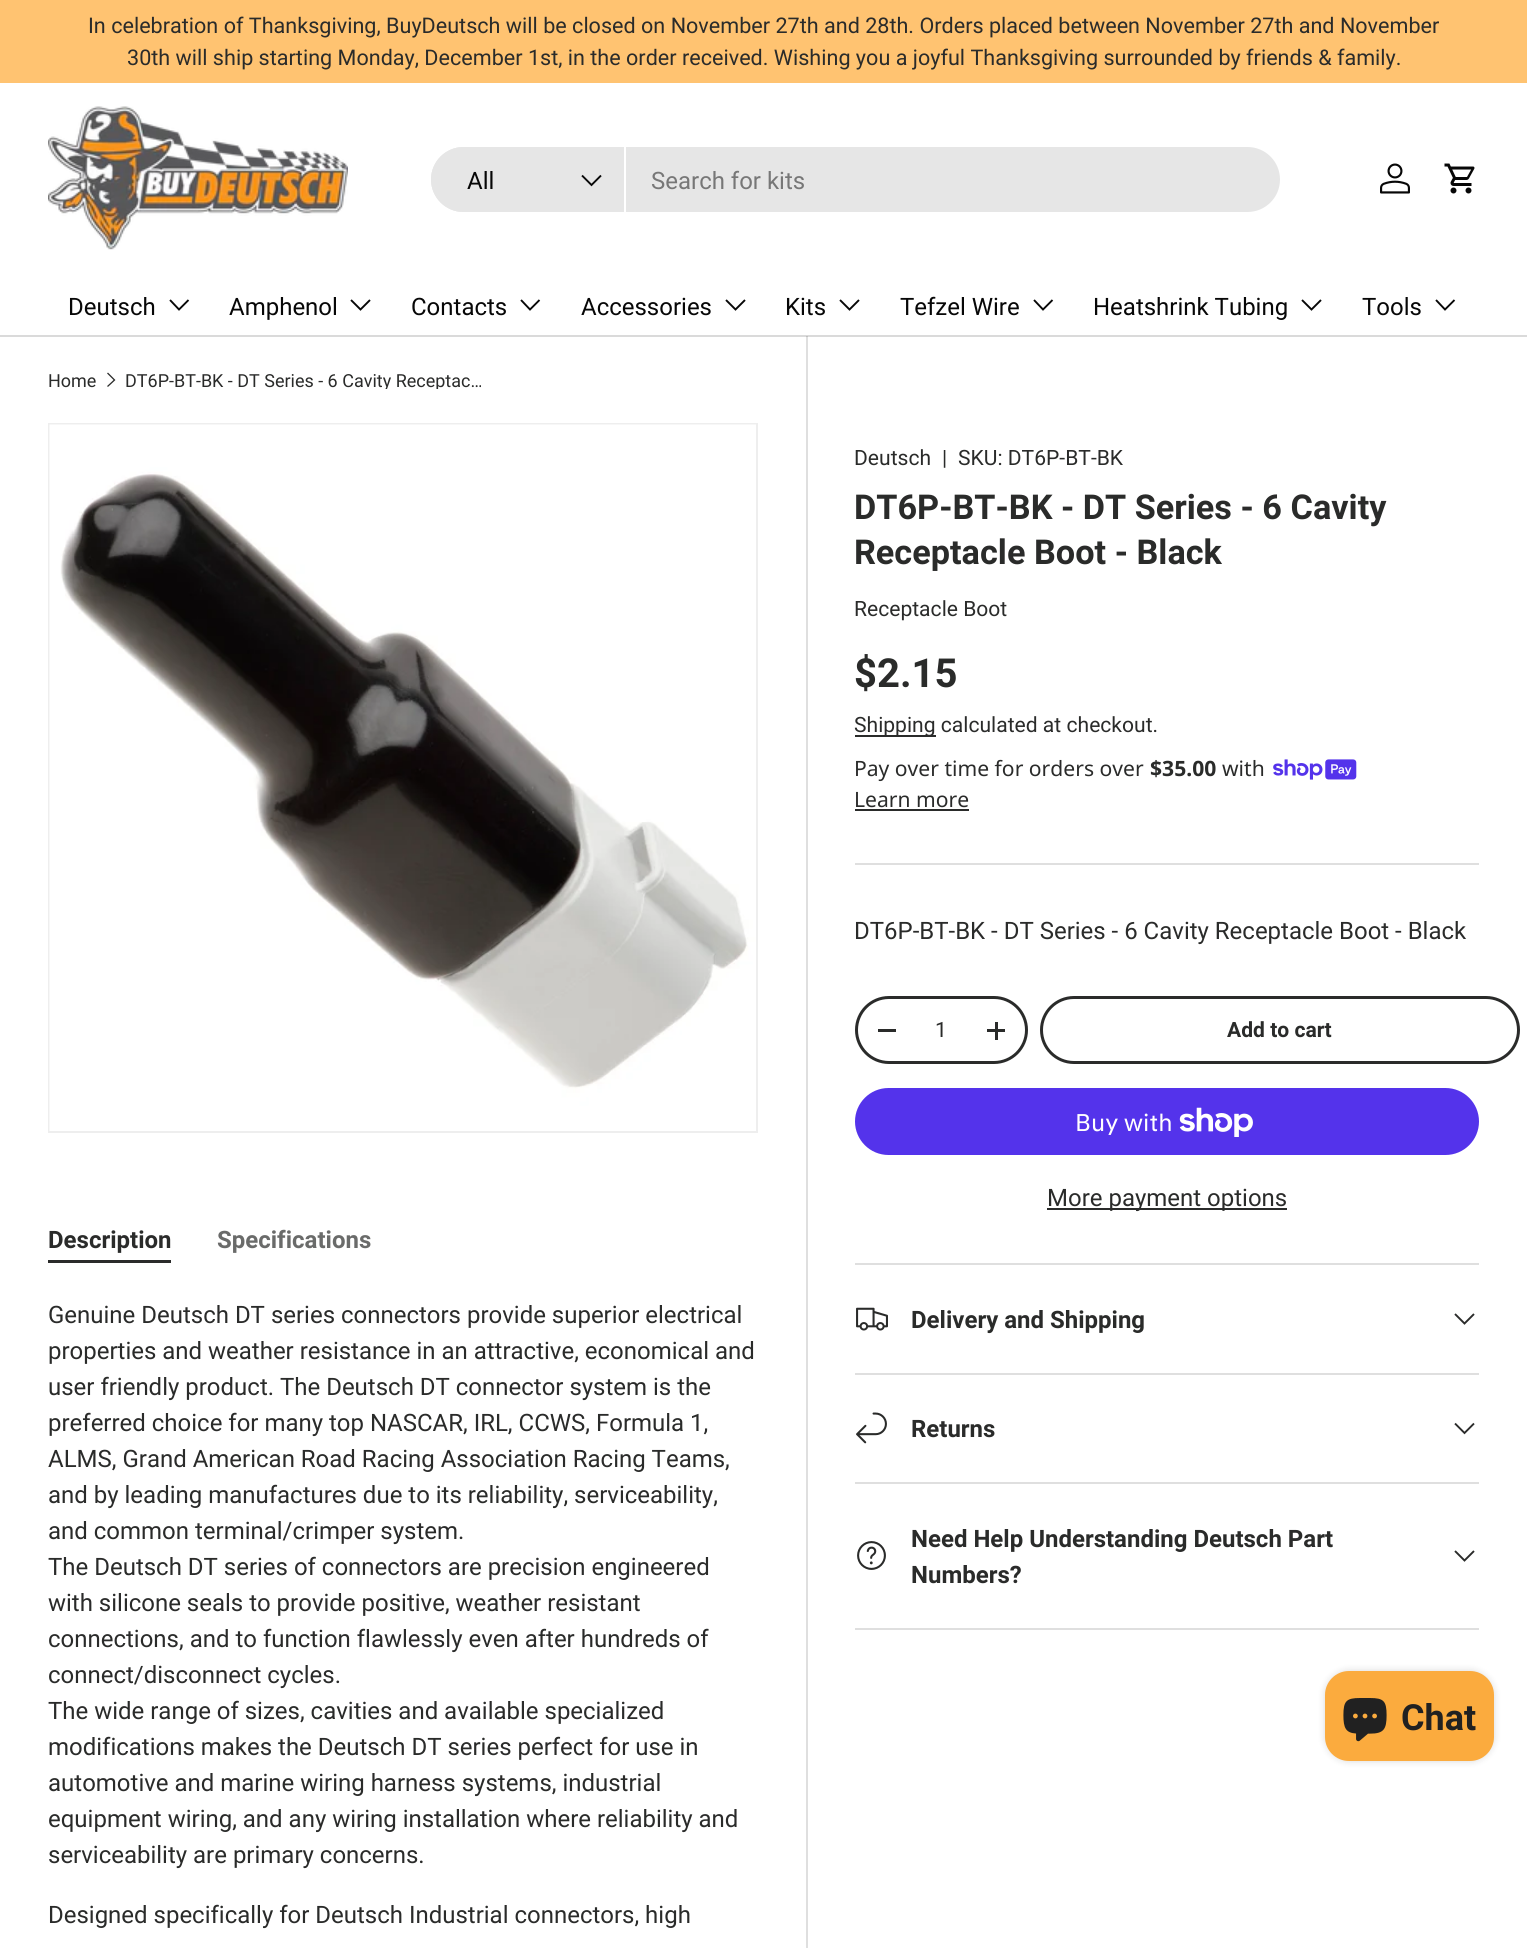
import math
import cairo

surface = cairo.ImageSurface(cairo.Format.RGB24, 1527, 1948)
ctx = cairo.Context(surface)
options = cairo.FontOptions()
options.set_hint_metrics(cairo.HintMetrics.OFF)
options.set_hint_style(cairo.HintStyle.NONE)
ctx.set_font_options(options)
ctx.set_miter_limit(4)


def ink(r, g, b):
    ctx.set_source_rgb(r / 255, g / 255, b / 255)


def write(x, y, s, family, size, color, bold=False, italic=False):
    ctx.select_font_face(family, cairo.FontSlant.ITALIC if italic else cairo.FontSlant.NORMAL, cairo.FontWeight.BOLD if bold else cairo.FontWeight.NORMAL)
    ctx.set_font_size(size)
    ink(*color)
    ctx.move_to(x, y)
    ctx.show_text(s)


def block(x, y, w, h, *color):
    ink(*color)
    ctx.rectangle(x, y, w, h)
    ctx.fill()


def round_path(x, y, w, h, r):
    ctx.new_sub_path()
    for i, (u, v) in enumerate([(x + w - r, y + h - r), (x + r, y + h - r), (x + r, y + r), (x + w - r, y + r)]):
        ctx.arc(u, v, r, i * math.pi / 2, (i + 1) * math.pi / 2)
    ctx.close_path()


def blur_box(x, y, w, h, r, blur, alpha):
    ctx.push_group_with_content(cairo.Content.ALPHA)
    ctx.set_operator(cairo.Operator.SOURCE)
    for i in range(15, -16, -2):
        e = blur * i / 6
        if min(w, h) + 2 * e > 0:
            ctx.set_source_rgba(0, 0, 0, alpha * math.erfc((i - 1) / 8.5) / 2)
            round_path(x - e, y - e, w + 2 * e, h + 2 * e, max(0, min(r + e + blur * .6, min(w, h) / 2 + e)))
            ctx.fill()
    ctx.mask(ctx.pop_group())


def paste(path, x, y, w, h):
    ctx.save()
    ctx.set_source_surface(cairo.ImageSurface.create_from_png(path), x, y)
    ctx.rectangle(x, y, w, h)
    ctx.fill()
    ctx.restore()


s1 = dict(family="Roboto", size=21.6, color=(42, 43, 42))
s2 = dict(family="Roboto", size=24, color=(7, 7, 7))
s3 = dict(family="Roboto", size=24, color=(119, 119, 119))
s4 = dict(family="Roboto", size=18, color=(42, 43, 42))
s5 = dict(family="Roboto", size=24, color=(42, 43, 42), bold=True)
s6 = dict(family="Roboto", size=24, color=(106, 107, 106), bold=True)
s7 = dict(family="Roboto", size=24, color=(42, 43, 42))
s8 = dict(family="Roboto", size=21.1, color=(42, 43, 42))
s9 = dict(family="Roboto", size=34.25, color=(42, 43, 42), bold=True)
s10 = dict(family="Roboto", size=40, color=(42, 43, 42), bold=True)
s11 = dict(family="Noto Sans", size=21.1, color=(42, 43, 42))
s12 = dict(family="Noto Sans", size=21.1, color=(42, 43, 42), bold=True)
s13 = dict(family="Roboto", size=21.1, color=(42, 43, 42), bold=True)
s14 = dict(family="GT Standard", size=24, color=(255, 255, 255))
s15 = dict(family="Roboto", size=36, color=(33, 33, 33), bold=True)

ink(255, 255, 255)
ctx.paint()
block(0, 335, 1527, 2, 218, 218, 218)
block(0, 0, 1527, 83, 255, 195, 113)
write(88, 33, "In celebration of Thanksgiving, BuyDeutsch will be closed on November 27th and 28th. Orders placed between November 27th and November", **s1)
write(127, 65, "30th will ship starting Monday, December 1st, in the order received. Wishing you a joyful Thanksgiving surrounded by friends & family.", **s1)
paste("pic1.png", 48, 106, 300, 144)
ink(230, 230, 230)
round_path(431, 147, 849, 65, 32.5)
ctx.fill()
ctx.new_path()
ctx.move_to(463.5, 147)
ctx.line_to(626, 147)
ctx.line_to(626, 212)
ctx.line_to(463.5, 212)
ctx.curve_to(445.5, 212, 431, 197.5, 431, 179.5)
ctx.curve_to(431, 161.5, 445.5, 147, 463.5, 147)
ctx.close_path()
ctx.fill()
block(624, 147, 2, 65, 255, 255, 255)
write(467, 189, "All", **s2)
ctx.new_path()
ctx.move_to(601, 175.5)
ctx.line_to(591.5, 185)
ctx.line_to(582, 175.5)
ctx.set_line_width(1.9)
ctx.stroke()
write(651, 189, "Search for kits", **s3)
paste("pic2.png", 1380, 163, 30, 31)
paste("pic3.png", 1444, 163, 31, 31)
write(68, 315, "Deutsch", **s2)
ctx.new_path()
ctx.move_to(188.5, 300)
ctx.line_to(179, 309.5)
ctx.line_to(170, 300)
ctx.stroke()
write(229, 315, "Amphenol", **s2)
ctx.new_path()
ctx.move_to(370, 300)
ctx.line_to(360.5, 309.5)
ctx.line_to(351, 300)
ctx.stroke()
write(411, 315, "Contacts", **s2)
ctx.new_path()
ctx.move_to(539.5, 300)
ctx.line_to(530, 309.5)
ctx.line_to(521, 300)
ctx.stroke()
write(581, 315, "Accessories", **s2)
ctx.new_path()
ctx.move_to(745, 300)
ctx.line_to(735.5, 309.5)
ctx.line_to(726, 300)
ctx.stroke()
write(785, 315, "Kits", **s2)
ctx.new_path()
ctx.move_to(859, 300)
ctx.line_to(849.5, 309.5)
ctx.line_to(840, 300)
ctx.stroke()
write(900, 315, "Tefzel Wire", **s2)
ctx.new_path()
ctx.move_to(1052.5, 300)
ctx.line_to(1043, 309.5)
ctx.line_to(1034, 300)
ctx.stroke()
write(1093, 315, "Heatshrink Tubing", **s2)
ctx.new_path()
ctx.move_to(1321, 300)
ctx.line_to(1311.5, 309.5)
ctx.line_to(1302, 300)
ctx.stroke()
write(1362, 315, "Tools", **s2)
ctx.new_path()
ctx.move_to(1454.5, 300)
ctx.line_to(1445, 309.5)
ctx.line_to(1436, 300)
ctx.stroke()
write(48, 387, "Home", **s4)
ctx.new_path()
ctx.move_to(107.5, 373)
ctx.line_to(114.5, 380)
ctx.line_to(107.5, 386.5)
ctx.set_line_width(1.3)
ctx.stroke()
ctx.save()
ctx.rectangle(125, 371, 360, 18)
ctx.clip()
write(125, 387, "DT6P-BT-BK - DT Series - 6 Cavity Receptac…", **s4)
ctx.restore()
write(48, 1248, "Description", **s5)
block(48, 1260, 123, 3, 42, 43, 42)
write(217, 1248, "Specifications", **s6)
write(48, 1323, "Genuine Deutsch DT series connectors provide superior electrical", **s7)
write(48, 1359, "properties and weather resistance in an attractive, economical and", **s7)
write(48, 1395, "user friendly product. The Deutsch DT connector system is the", **s7)
write(48, 1431, "preferred choice for many top NASCAR, IRL, CCWS, Formula 1,", **s7)
write(48, 1467, "ALMS, Grand American Road Racing Association Racing Teams,", **s7)
write(48, 1503, "and by leading manufactures due to its reliability, serviceability,", **s7)
write(48, 1539, "and common terminal/crimper system.", **s7)
write(48, 1575, "The Deutsch DT series of connectors are precision engineered", **s7)
write(48, 1611, "with silicone seals to provide positive, weather resistant", **s7)
write(48, 1647, "connections, and to function flawlessly even after hundreds of", **s7)
write(48, 1683, "connect/disconnect cycles.", **s7)
write(48, 1719, "The wide range of sizes, cavities and available specialized", **s7)
write(48, 1755, "modifications makes the Deutsch DT series perfect for use in", **s7)
write(48, 1791, "automotive and marine wiring harness systems, industrial", **s7)
write(48, 1827, "equipment wiring, and any wiring installation where reliability and", **s7)
write(48, 1863, "serviceability are primary concerns.", **s7)
write(48, 1923, "Designed specifically for Deutsch Industrial connectors, high", **s7)
ctx.rectangle(49, 424, 708, 708)
ink(238, 238, 238)
ctx.set_line_width(2)
ctx.stroke()
paste("pic4.png", 49, 424, 707, 707)
block(806, 336, 2, 1612, 223, 223, 223)
block(806, 336, 2, 1, 191, 191, 191)
write(854, 465, "Deutsch", **s8)
write(942, 465, "|", **s8)
write(958, 465, "SKU: DT6P-BT-BK", **s8)
write(854, 519, "DT6P-BT-BK - DT Series - 6 Cavity", **s9)
write(854, 564, "Receptacle Boot - Black", **s9)
write(854, 616, "Receptacle Boot", **s8)
write(854, 687, "$2.15", **s10)
block(855, 735, 81, 2, 42, 43, 42)
write(854, 732, "Shipping calculated at checkout.", **s8)
write(854, 776, "Pay over time for orders over", **s11)
write(1150, 776, "$35.00", **s12)
write(1222, 776, "with", **s11)
paste("pic5.png", 1273, 759, 84, 21)
write(854, 807, "Learn more", **s11)
block(855, 809, 114, 2, 42, 43, 42)
block(855, 863, 624, 2, 223, 223, 223)
write(854, 939, "DT6P-BT-BK - DT Series - 6 Cavity Receptacle Boot - Black", **s7)
round_path(856.5, 997.5, 170, 65, 32.5)
ctx.set_line_width(3)
ctx.stroke()
block(878, 1029, 18, 3, 42, 43, 42)
write(935, 1037, "1", **s8)
block(987, 1029, 18, 3, 42, 43, 42)
block(995, 1022, 3, 18, 42, 43, 42)
round_path(1041.5, 997.5, 477, 65, 32.5)
ctx.stroke()
write(1227, 1037, "Add to cart", **s13)
ink(84, 51, 235)
round_path(855, 1088, 624, 67, 33.5)
ctx.fill()
write(1075, 1131, "Buy with", **s14)
paste("pic6.png", 1179, 1107, 74, 30)
block(1047, 1208, 240, 2, 42, 43, 42)
write(1047, 1206, "More payment options", **s7)
block(855, 1263, 624, 2, 223, 223, 223)
block(855, 1373, 624, 2, 223, 223, 223)
paste("pic7.png", 856, 1307, 32, 24)
write(911, 1328, "Delivery and Shipping", **s5)
ctx.new_path()
ctx.move_to(1474, 1314)
ctx.line_to(1464.5, 1323.5)
ctx.line_to(1455, 1314)
ctx.set_line_width(1.9)
ctx.stroke()
block(855, 1482, 624, 2, 223, 223, 223)
paste("pic8.png", 856, 1412, 31, 32)
write(911, 1437, "Returns", **s5)
ctx.new_path()
ctx.move_to(1474, 1423.5)
ctx.line_to(1464.5, 1433)
ctx.line_to(1455, 1423.5)
ctx.stroke()
block(855, 1628, 624, 2, 223, 223, 223)
paste("pic9.png", 857, 1541, 29, 29)
write(911, 1547, "Need Help Understanding Deutsch Part", **s5)
write(911, 1583, "Numbers?", **s5)
ctx.new_path()
ctx.move_to(1474, 1551)
ctx.line_to(1464.5, 1560.5)
ctx.line_to(1455, 1551)
ctx.stroke()
ink(0, 0, 0)
blur_box(1325, 1671, 169, 90, 24, 4, 0.15)
ink(251, 171, 62)
round_path(1325, 1671, 169, 90, 24)
ctx.fill()
paste("pic10.png", 1343, 1698, 44, 44)
write(1401, 1730, "Chat", **s15)
surface.write_to_png("screenshot.png")
